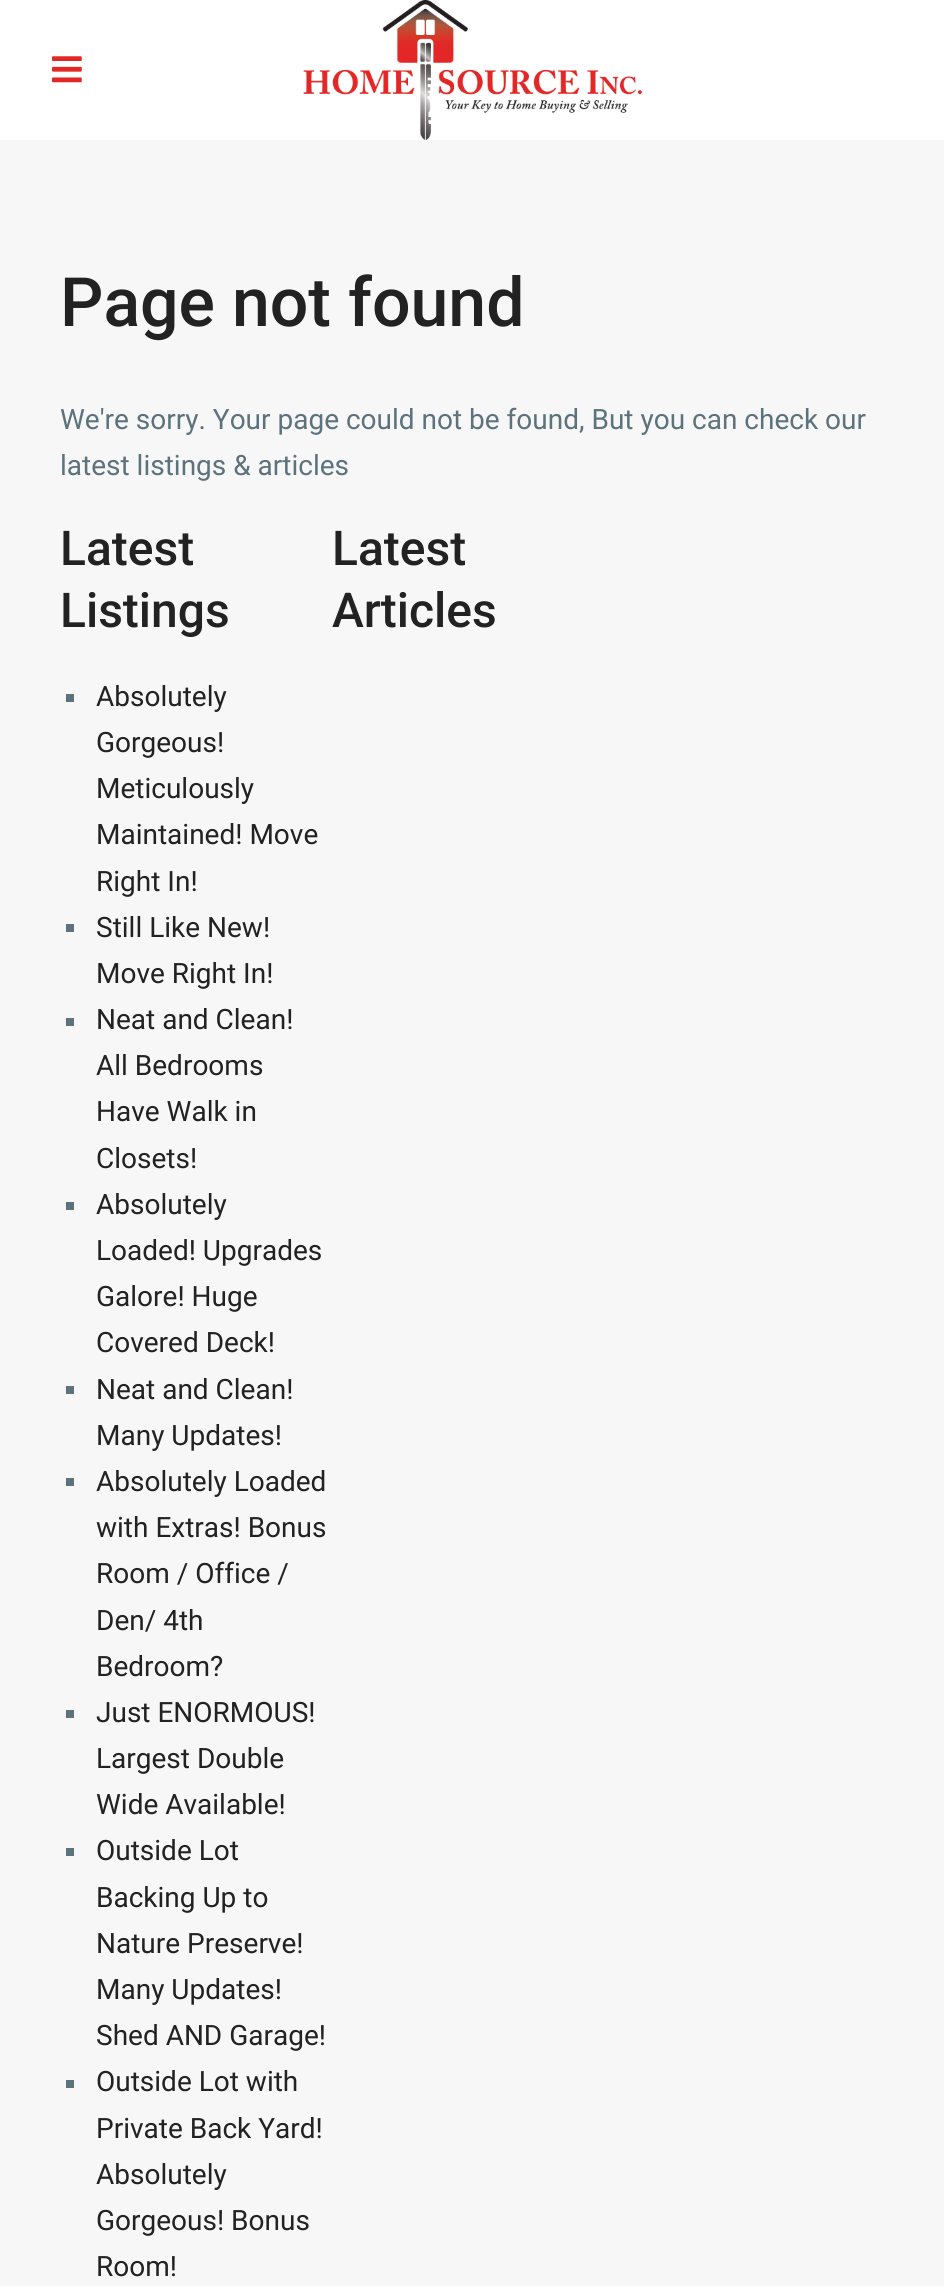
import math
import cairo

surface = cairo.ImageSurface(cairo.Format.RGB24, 944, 2286)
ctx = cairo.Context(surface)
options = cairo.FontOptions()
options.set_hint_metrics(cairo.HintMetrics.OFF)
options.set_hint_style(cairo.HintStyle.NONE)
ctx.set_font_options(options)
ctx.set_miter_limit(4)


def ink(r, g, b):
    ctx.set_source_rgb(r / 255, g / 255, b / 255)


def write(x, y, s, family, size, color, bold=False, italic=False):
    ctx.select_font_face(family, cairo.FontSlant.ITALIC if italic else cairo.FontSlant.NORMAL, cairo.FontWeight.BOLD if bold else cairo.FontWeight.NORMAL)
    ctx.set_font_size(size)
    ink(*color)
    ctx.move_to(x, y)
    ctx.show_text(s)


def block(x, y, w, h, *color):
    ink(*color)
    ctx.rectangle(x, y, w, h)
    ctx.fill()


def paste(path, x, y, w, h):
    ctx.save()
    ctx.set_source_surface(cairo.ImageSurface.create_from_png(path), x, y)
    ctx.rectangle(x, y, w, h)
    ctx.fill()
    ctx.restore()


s1 = dict(family="Roboto Medium", size=68, color=(34, 34, 34))
s2 = dict(family="Roboto", size=28, color=(92, 114, 125))
s3 = dict(family="Roboto Medium", size=48, color=(34, 34, 34))
s4 = dict(family="Roboto", size=28, color=(34, 34, 34))

ink(247, 247, 247)
ctx.paint()
block(0, 0, 944, 140, 255, 255, 255)
paste("pic1.png", 52, 56, 30, 27)
paste("pic2.png", 303, 0, 339, 140)
write(60, 326, "Page not found", **s1)
write(60, 429, "We're sorry. Your page could not be found, But you can check our", **s2)
write(60, 475, "latest listings & articles", **s2)
write(60, 565, "Latest", **s3)
write(60, 627, "Listings", **s3)
block(66, 694, 8, 8, 92, 114, 125)
write(96, 706, "Absolutely", **s4)
write(96, 752, "Gorgeous!", **s4)
write(96, 798, "Meticulously", **s4)
write(96, 844, "Maintained! Move", **s4)
write(96, 891, "Right In!", **s4)
block(66, 924, 8, 8, 92, 114, 125)
write(96, 937, "Still Like New!", **s4)
write(96, 983, "Move Right In!", **s4)
block(66, 1018, 8, 8, 92, 114, 125)
write(96, 1029, "Neat and Clean!", **s4)
write(96, 1075, "All Bedrooms", **s4)
write(96, 1121, "Have Walk in", **s4)
write(96, 1168, "Closets!", **s4)
block(66, 1202, 8, 8, 92, 114, 125)
write(96, 1214, "Absolutely", **s4)
write(96, 1260, "Loaded! Upgrades", **s4)
write(96, 1306, "Galore! Huge", **s4)
write(96, 1352, "Covered Deck!", **s4)
block(66, 1386, 8, 8, 92, 114, 125)
write(96, 1399, "Neat and Clean!", **s4)
write(96, 1445, "Many Updates!", **s4)
block(66, 1478, 8, 8, 92, 114, 125)
write(96, 1491, "Absolutely Loaded", **s4)
write(96, 1537, "with Extras! Bonus", **s4)
write(96, 1583, "Room / Office /", **s4)
write(96, 1630, "Den/ 4th", **s4)
write(96, 1676, "Bedroom?", **s4)
block(66, 1710, 8, 8, 92, 114, 125)
write(96, 1722, "Just ENORMOUS!", **s4)
write(96, 1768, "Largest Double", **s4)
write(96, 1814, "Wide Available!", **s4)
block(66, 1848, 8, 8, 92, 114, 125)
write(96, 1860, "Outside Lot", **s4)
write(96, 1907, "Backing Up to", **s4)
write(96, 1953, "Nature Preserve!", **s4)
write(96, 1999, "Many Updates!", **s4)
write(96, 2045, "Shed AND Garage!", **s4)
block(66, 2080, 8, 8, 92, 114, 125)
write(96, 2091, "Outside Lot with", **s4)
write(96, 2138, "Private Back Yard!", **s4)
write(96, 2184, "Absolutely", **s4)
write(96, 2230, "Gorgeous! Bonus", **s4)
write(96, 2276, "Room!", **s4)
write(332, 565, "Latest", **s3)
write(332, 627, "Articles", **s3)
surface.write_to_png("screenshot.png")
